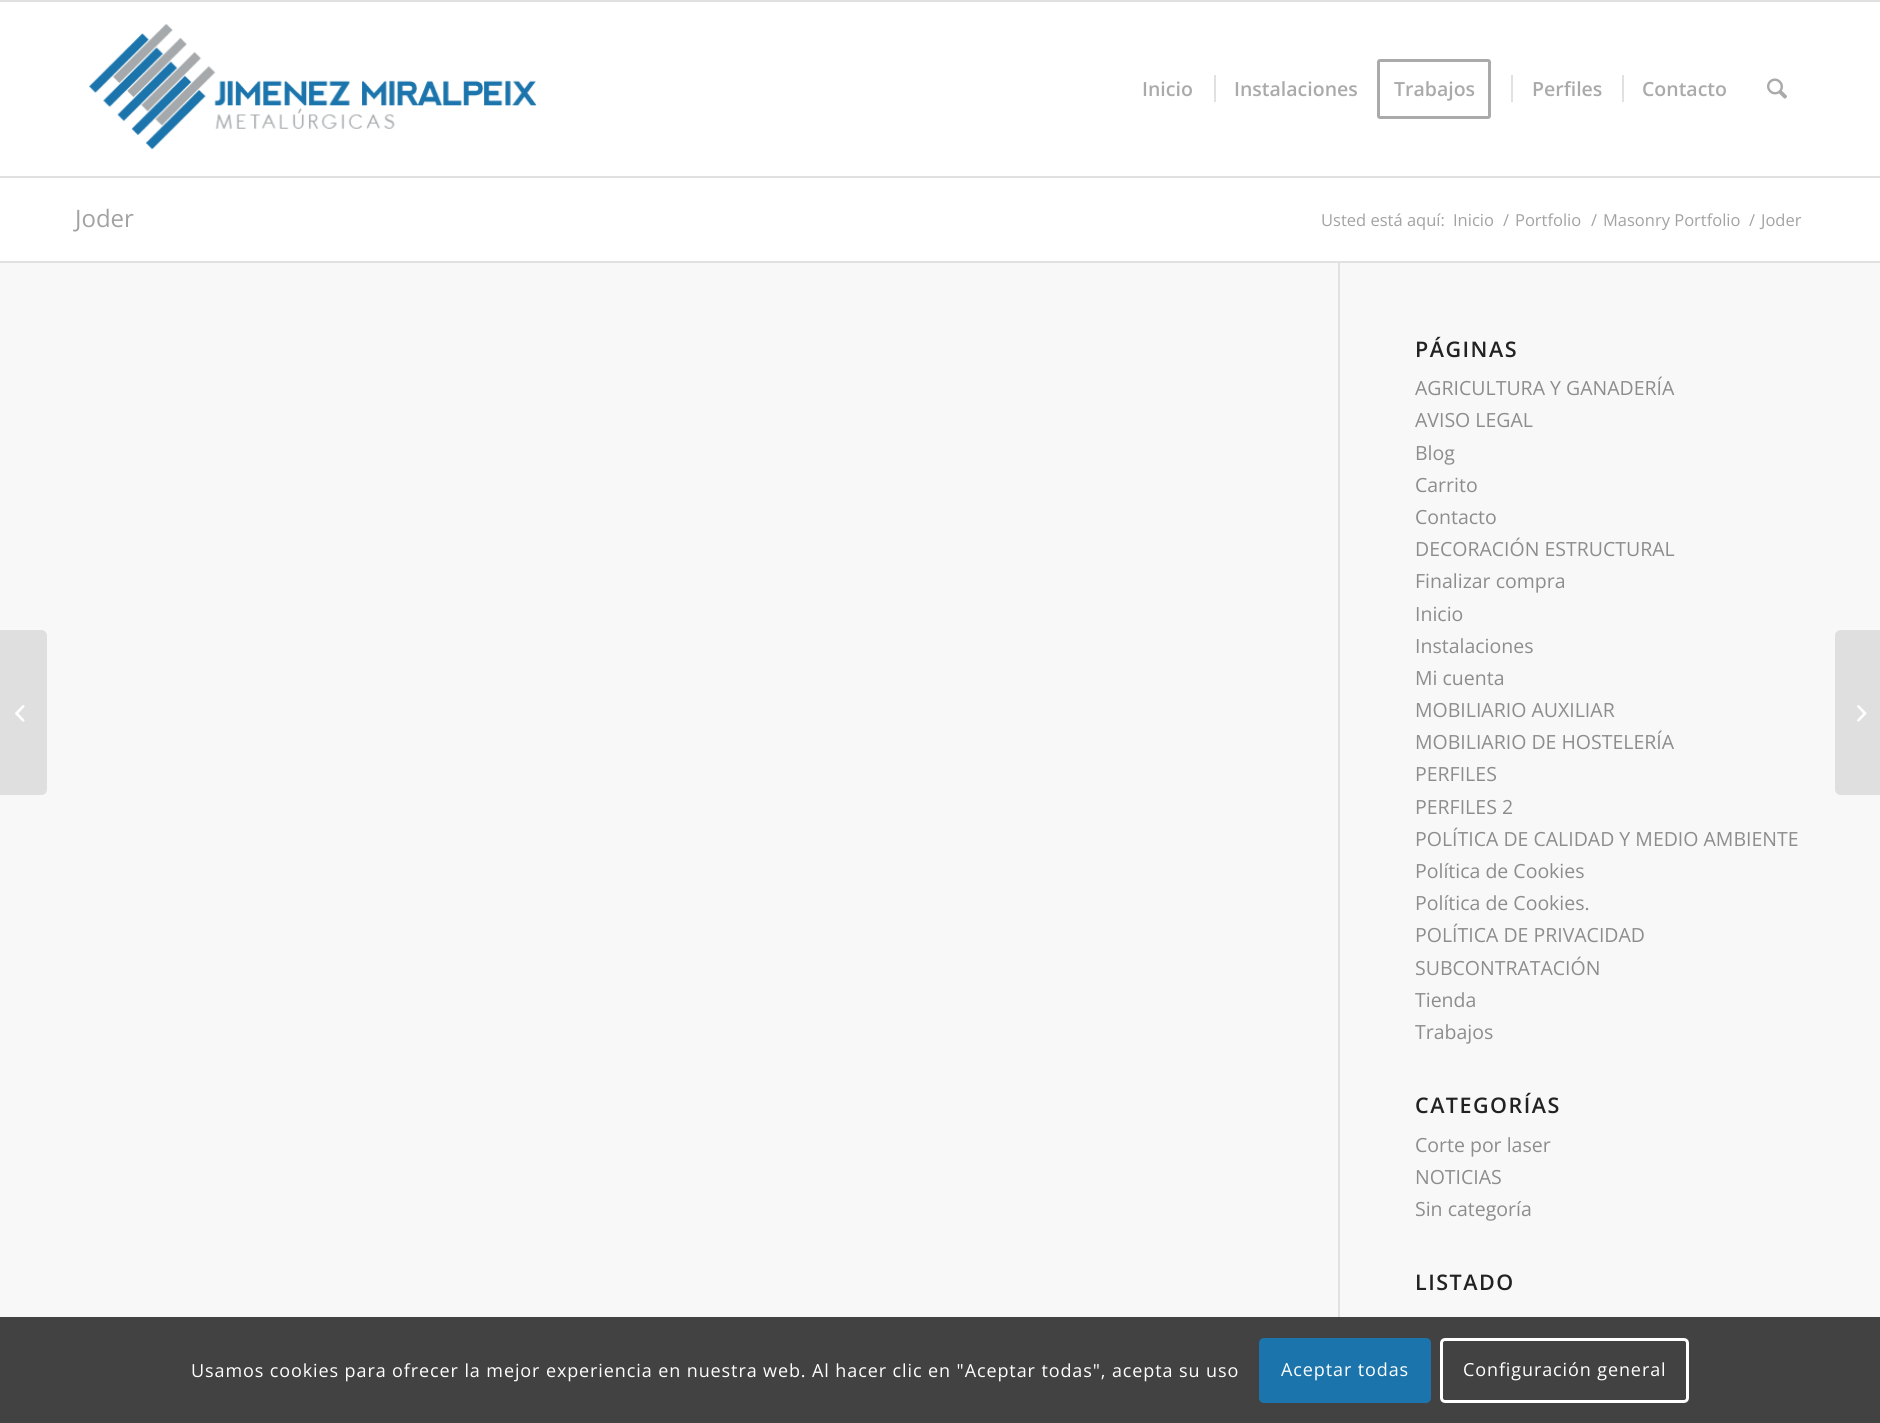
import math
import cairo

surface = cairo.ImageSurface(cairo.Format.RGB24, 1880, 1423)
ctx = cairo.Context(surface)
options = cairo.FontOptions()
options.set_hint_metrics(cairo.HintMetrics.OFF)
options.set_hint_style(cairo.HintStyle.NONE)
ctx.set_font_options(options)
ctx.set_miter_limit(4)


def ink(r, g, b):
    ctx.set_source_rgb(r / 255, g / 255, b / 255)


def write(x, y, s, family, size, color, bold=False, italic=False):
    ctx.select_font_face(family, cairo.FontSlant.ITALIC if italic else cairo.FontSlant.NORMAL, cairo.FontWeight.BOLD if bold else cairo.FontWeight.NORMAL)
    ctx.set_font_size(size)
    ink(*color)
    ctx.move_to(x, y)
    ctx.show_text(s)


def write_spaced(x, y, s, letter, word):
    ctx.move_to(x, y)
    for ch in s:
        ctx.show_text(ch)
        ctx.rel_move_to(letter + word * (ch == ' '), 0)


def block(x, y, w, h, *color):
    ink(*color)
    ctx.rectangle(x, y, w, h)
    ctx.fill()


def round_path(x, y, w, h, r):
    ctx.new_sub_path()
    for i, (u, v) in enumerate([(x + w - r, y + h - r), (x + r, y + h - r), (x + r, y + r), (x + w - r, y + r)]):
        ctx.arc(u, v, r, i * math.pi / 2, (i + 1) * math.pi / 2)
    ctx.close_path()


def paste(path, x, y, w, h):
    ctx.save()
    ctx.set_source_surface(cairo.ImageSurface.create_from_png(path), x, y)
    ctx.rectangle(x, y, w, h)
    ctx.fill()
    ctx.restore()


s1 = dict(family="Open Sans SemiBold", size=19.5, color=(170, 170, 170))
s2 = dict(family="Open Sans", size=24, color=(162, 162, 162))
s3 = dict(family="Open Sans", size=16.5, color=(162, 162, 162))
s4 = dict(family="Open Sans", size=19.5, color=(141, 141, 141))

ink(255, 255, 255)
ctx.paint()
block(0, 0, 1880, 2, 225, 225, 225)
block(0, 176, 1880, 2, 225, 225, 225)
paste("pic1.png", 89, 24, 448, 126)
write(1142, 96, "Inicio", **s1)
write(1234, 96, "Instalaciones", **s1)
block(1214, 75, 2, 27, 225, 225, 225)
round_path(1378.5, 60.5, 111, 57, 1.5)
ink(170, 170, 170)
ctx.set_line_width(3)
ctx.stroke()
write(1394, 96, "Trabajos", **s1)
write(1532, 96, "Perfiles", **s1)
block(1511, 75, 2, 27, 225, 225, 225)
write(1642, 96, "Contacto", **s1)
block(1622, 75, 2, 27, 225, 225, 225)
paste("pic2.png", 1767, 78, 20, 21)
block(0, 263, 1880, 1054, 248, 248, 248)
ink(223, 223, 223)
ctx.new_path()
ctx.move_to(0, 630)
ctx.line_to(41, 630)
ctx.curve_to(44.5, 630, 47, 632.5, 47, 636)
ctx.line_to(47, 789)
ctx.curve_to(47, 792.5, 44.5, 795, 41, 795)
ctx.line_to(0, 795)
ctx.close_path()
ctx.fill()
paste("pic3.png", 15, 705, 10, 17)
write(75, 227, "Joder", **s2)
write(1321, 226, "Usted está aquí:", **s3)
write(1453, 226, "Inicio", **s3)
write(1503, 226, "/", **s3)
write(1515, 226, "Portfolio", **s3)
write(1591, 226, "/", **s3)
write(1603, 226, "Masonry Portfolio", **s3)
write(1749, 226, "/", **s3)
write(1761, 226, "Joder", **s3)
block(0, 261, 1880, 2, 225, 225, 225)
block(1338, 263, 2, 1054, 225, 225, 225)
ctx.select_font_face("Open Sans SemiBold")
ctx.set_font_size(21.5)
ink(34, 34, 34)
write_spaced(1415, 357, "PÁGINAS", 1.5, 0)
write(1415, 395, "AGRICULTURA Y GANADERÍA", **s4)
write(1415, 427, "AVISO LEGAL", **s4)
write(1415, 460, "Blog", **s4)
write(1415, 492, "Carrito", **s4)
write(1415, 524, "Contacto", **s4)
write(1415, 556, "DECORACIÓN ESTRUCTURAL", **s4)
write(1415, 588, "Finalizar compra", **s4)
write(1415, 621, "Inicio", **s4)
write(1415, 653, "Instalaciones", **s4)
write(1415, 685, "Mi cuenta", **s4)
write(1415, 717, "MOBILIARIO AUXILIAR", **s4)
write(1415, 749, "MOBILIARIO DE HOSTELERÍA", **s4)
write(1415, 781, "PERFILES", **s4)
write(1415, 814, "PERFILES 2", **s4)
write(1415, 846, "POLÍTICA DE CALIDAD Y MEDIO AMBIENTE", **s4)
write(1415, 878, "Política de Cookies", **s4)
write(1415, 910, "Política de Cookies.", **s4)
write(1415, 942, "POLÍTICA DE PRIVACIDAD", **s4)
write(1415, 975, "SUBCONTRATACIÓN", **s4)
write(1415, 1007, "Tienda", **s4)
write(1415, 1039, "Trabajos", **s4)
ctx.select_font_face("Open Sans SemiBold")
ctx.set_font_size(21.5)
ink(34, 34, 34)
write_spaced(1415, 1113, "CATEGORÍAS", 1.5, 0)
write(1415, 1152, "Corte por laser", **s4)
write(1415, 1184, "NOTICIAS", **s4)
write(1415, 1216, "Sin categoría", **s4)
ctx.select_font_face("Open Sans SemiBold")
ctx.set_font_size(21.5)
ink(34, 34, 34)
write_spaced(1415, 1290, "LISTADO", 1.5, 0)
ink(223, 223, 223)
ctx.new_path()
ctx.move_to(1841, 630)
ctx.line_to(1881, 630)
ctx.line_to(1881, 795)
ctx.line_to(1841, 795)
ctx.curve_to(1837.5, 795, 1835, 792.5, 1835, 789)
ctx.line_to(1835, 636)
ctx.curve_to(1835, 632.5, 1837.5, 630, 1841, 630)
ctx.close_path()
ctx.fill()
paste("pic4.png", 1857, 705, 10, 17)
block(0, 1317, 1880, 106, 66, 66, 66)
ctx.select_font_face("Open Sans")
ctx.set_font_size(18)
ink(255, 255, 255)
write_spaced(191, 1377, "Usamos cookies para ofrecer la mejor experiencia en nuestra web. Al hacer clic en \"Aceptar todas\", acepta su uso", 0.9, 0)
ink(27, 116, 171)
round_path(1259, 1338, 172, 65, 5)
ctx.fill()
ink(255, 255, 255)
write_spaced(1281, 1376, "Aceptar todas", 0.9, 0)
round_path(1441.5, 1339.5, 246, 62, 3.5)
ctx.stroke()
write_spaced(1463, 1376, "Configuración general", 0.9, 0)
surface.write_to_png("screenshot.png")
